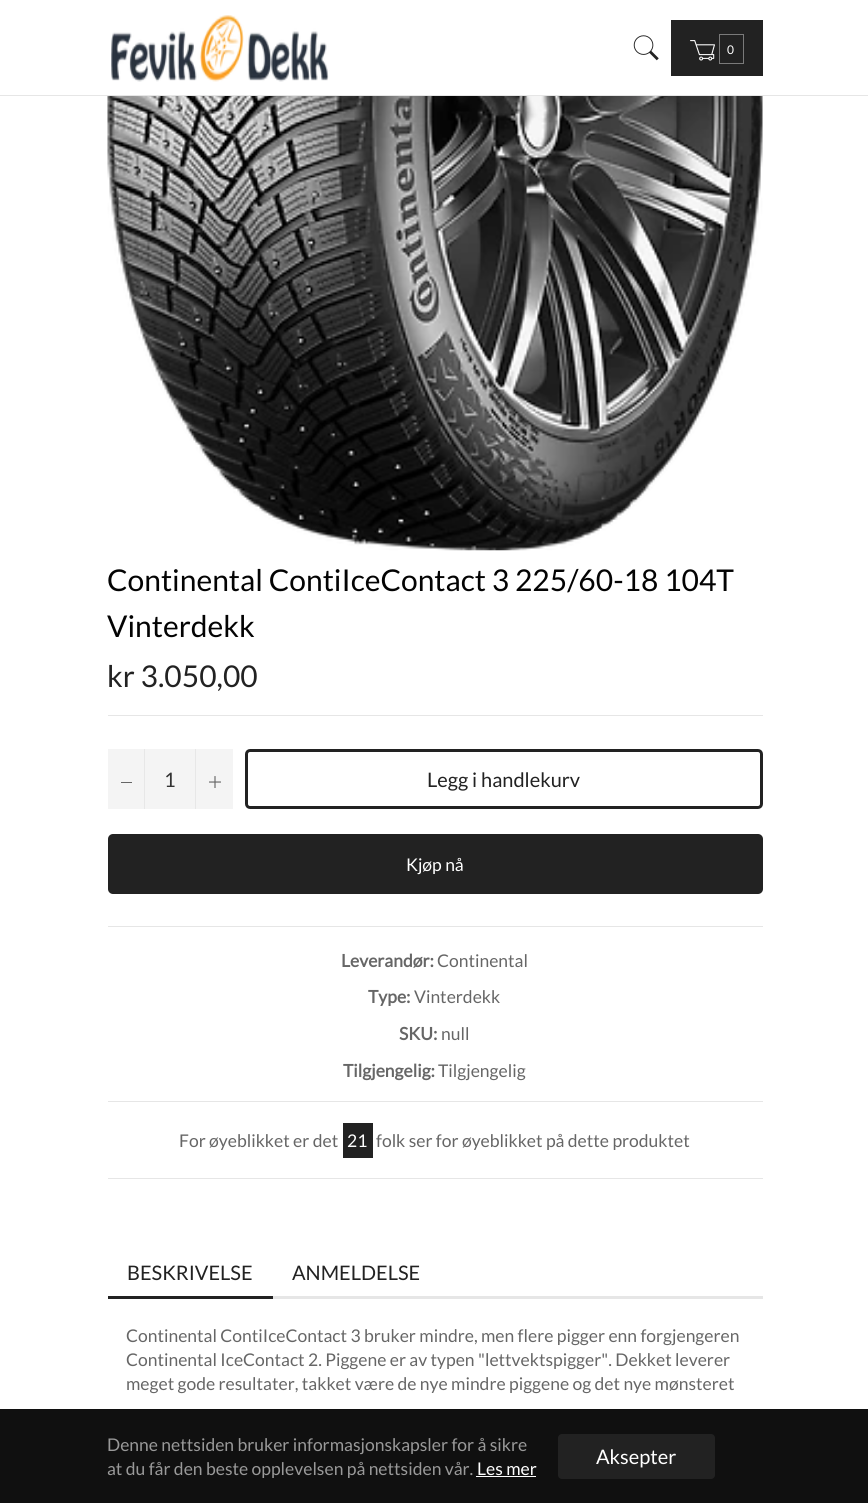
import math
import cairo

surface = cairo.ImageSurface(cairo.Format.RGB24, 868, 1503)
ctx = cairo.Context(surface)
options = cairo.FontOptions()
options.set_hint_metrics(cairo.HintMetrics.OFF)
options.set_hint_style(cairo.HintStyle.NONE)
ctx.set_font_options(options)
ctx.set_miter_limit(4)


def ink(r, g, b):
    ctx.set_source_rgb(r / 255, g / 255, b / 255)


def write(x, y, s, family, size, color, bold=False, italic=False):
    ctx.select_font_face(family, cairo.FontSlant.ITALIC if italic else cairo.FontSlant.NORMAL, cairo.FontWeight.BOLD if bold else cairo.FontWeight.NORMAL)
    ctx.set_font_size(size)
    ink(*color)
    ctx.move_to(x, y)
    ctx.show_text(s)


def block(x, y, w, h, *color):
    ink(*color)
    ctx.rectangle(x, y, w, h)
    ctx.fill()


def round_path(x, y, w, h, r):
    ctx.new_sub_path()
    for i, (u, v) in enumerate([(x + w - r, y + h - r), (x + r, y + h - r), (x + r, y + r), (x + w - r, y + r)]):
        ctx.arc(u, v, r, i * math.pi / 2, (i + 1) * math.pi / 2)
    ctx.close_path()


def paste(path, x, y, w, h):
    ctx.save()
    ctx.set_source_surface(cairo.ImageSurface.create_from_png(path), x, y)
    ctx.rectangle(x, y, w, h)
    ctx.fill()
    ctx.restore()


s1 = dict(family="Lato", size=12, color=(255, 255, 255))
s2 = dict(family="Lato", size=30, color=(3, 3, 3))
s3 = dict(family="Lato", size=30, color=(34, 34, 34))
s4 = dict(family="Lato", size=20, color=(51, 51, 51))
s5 = dict(family="Lato", size=20, color=(34, 34, 34))
s6 = dict(family="Lato", size=17.5, color=(255, 255, 255))
s7 = dict(family="Lato", size=17.5, color=(102, 102, 102), bold=True)
s8 = dict(family="Lato", size=17.5, color=(102, 102, 102))
s9 = dict(family="Lato", size=17.5, color=(153, 153, 153))
s10 = dict(family="Lato", size=20, color=(255, 255, 255))

ink(255, 255, 255)
ctx.paint()
block(0, 95, 868, 1, 230, 230, 230)
paste("pic1.png", 111, 15, 218, 67)
paste("pic2.png", 633, 35, 26, 26)
block(671, 20, 92, 56, 34, 34, 34)
paste("pic3.png", 690, 40, 25, 21)
ctx.rectangle(719.5, 34.5, 24, 29)
ink(122, 122, 122)
ctx.set_line_width(1)
ctx.stroke()
write(727, 54, "0", **s1)
paste("pic4.png", 107, 96, 656, 455)
write(107, 591, "Continental ContiIceContact 3 225/60-18 104T", **s2)
write(107, 637, "Vinterdekk", **s2)
write(107, 687, "kr 3.050,00", **s3)
block(108, 715, 655, 1, 230, 230, 230)
block(108, 749, 125, 60, 244, 244, 244)
block(144, 749, 1, 60, 231, 231, 231)
block(121, 782, 11, 1, 102, 102, 102)
write(164, 787, "1", **s4)
block(195, 749, 1, 60, 231, 231, 231)
paste("pic5.png", 209, 776, 12, 12)
round_path(246.5, 750.5, 515, 57, 3.5)
ink(34, 34, 34)
ctx.set_line_width(3)
ctx.stroke()
write(427, 787, "Legg i handlekurv", **s5)
round_path(108, 834, 655, 60, 5)
ctx.fill()
write(406, 871, "Kjøp nå", **s6)
block(108, 926, 655, 1, 230, 230, 230)
write(341, 967, "Leverandør:", **s7)
write(437, 967, "Continental", **s8)
write(368, 1003, "Type:", **s7)
write(414, 1003, "Vinterdekk", **s8)
write(399, 1040, "SKU:", **s7)
write(441, 1040, "null", **s8)
write(343, 1077, "Tilgjengelig:", **s7)
write(438, 1077, "Tilgjengelig", **s8)
block(108, 1101, 655, 1, 230, 230, 230)
write(179, 1147, "For øyeblikket er det", **s8)
block(343, 1123, 30, 35, 34, 34, 34)
write(347, 1147, "21", **s6)
write(376, 1147, "folk ser for øyeblikket på dette produktet", **s8)
block(108, 1178, 655, 1, 230, 230, 230)
block(273, 1296, 490, 3, 230, 230, 230)
block(108, 1296, 165, 3, 34, 34, 34)
write(127, 1280, "BESKRIVELSE", **s5)
write(292, 1280, "ANMELDELSE", **s5)
write(126, 1342, "Continental ContiIceContact 3 bruker mindre, men flere pigger enn forgjengeren", **s8)
write(126, 1366, "Continental IceContact 2. Piggene er av typen \"lettvektspigger\". Dekket leverer", **s8)
write(126, 1390, "meget gode resultater, takket være de nye mindre piggene og det nye mønsteret", **s8)
block(0, 1409, 868, 94, 16, 16, 16)
write(107, 1451, "Denne nettsiden bruker informasjonskapsler for å sikre", **s9)
write(107, 1475, "at du får den beste opplevelsen på nettsiden vår.", **s9)
write(477, 1475, "Les mer", **s6)
block(476, 1476, 60, 1, 255, 255, 255)
ink(34, 34, 34)
round_path(558, 1434, 157, 45, 4)
ctx.fill()
write(596, 1464, "Aksepter", **s10)
surface.write_to_png("screenshot.png")
